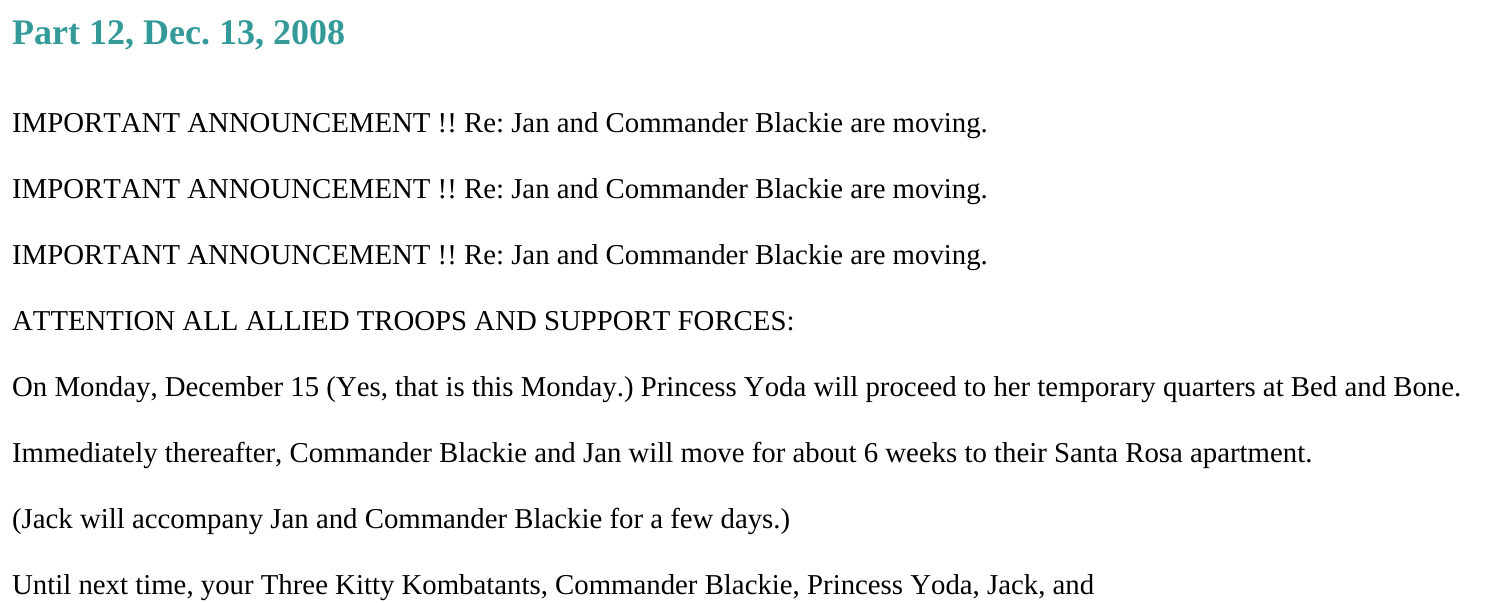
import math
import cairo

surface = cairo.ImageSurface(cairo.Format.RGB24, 1491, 603)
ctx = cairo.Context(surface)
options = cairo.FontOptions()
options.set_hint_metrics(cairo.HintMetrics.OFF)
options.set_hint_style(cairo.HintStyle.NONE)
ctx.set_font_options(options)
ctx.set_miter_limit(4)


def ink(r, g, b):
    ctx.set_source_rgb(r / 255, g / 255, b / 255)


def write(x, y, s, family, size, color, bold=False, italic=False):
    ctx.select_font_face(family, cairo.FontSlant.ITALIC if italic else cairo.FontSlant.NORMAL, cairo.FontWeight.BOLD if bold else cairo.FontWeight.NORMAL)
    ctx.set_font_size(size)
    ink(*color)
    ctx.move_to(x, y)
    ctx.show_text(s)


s1 = dict(family="Liberation Serif", size=36, color=(51, 153, 153), bold=True)
s2 = dict(family="Liberation Serif", size=28.8, color=(0, 0, 0))

ink(255, 255, 255)
ctx.paint()
write(12, 44, "Part 12, Dec. 13, 2008", **s1)
write(12, 132, "IMPORTANT ANNOUNCEMENT !! Re: Jan and Commander Blackie are moving.", **s2)
write(12, 198, "IMPORTANT ANNOUNCEMENT !! Re: Jan and Commander Blackie are moving.", **s2)
write(12, 264, "IMPORTANT ANNOUNCEMENT !! Re: Jan and Commander Blackie are moving.", **s2)
write(12, 330, "ATTENTION ALL ALLIED TROOPS AND SUPPORT FORCES:", **s2)
write(12, 396, "On Monday, December 15 (Yes, that is this Monday.) Princess Yoda will proceed to her temporary quarters at Bed and Bone.", **s2)
write(12, 462, "Immediately thereafter, Commander Blackie and Jan will move for about 6 weeks to their Santa Rosa apartment.", **s2)
write(12, 528, "(Jack will accompany Jan and Commander Blackie for a few days.)", **s2)
write(12, 594, "Until next time, your Three Kitty Kombatants, Commander Blackie, Princess Yoda, Jack, and", **s2)
surface.write_to_png("screenshot.png")
